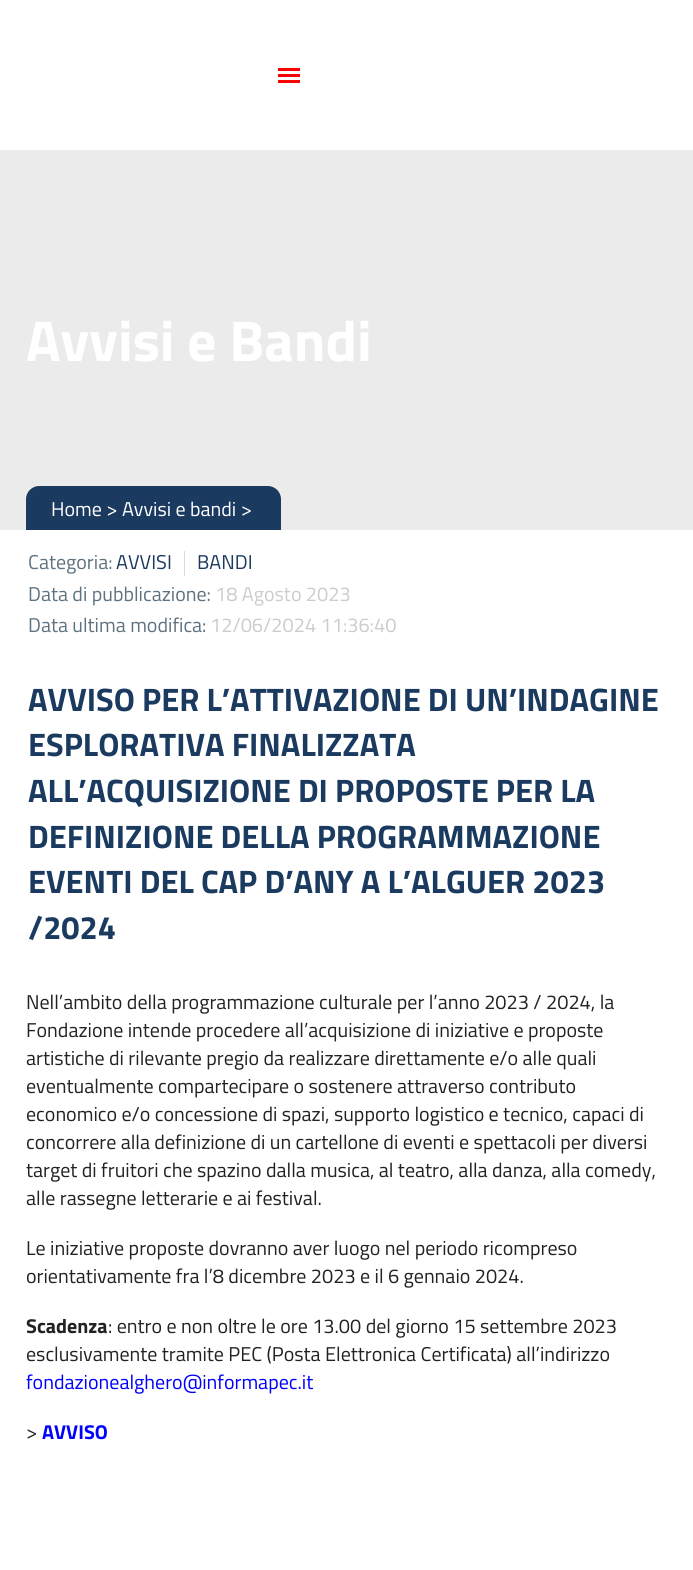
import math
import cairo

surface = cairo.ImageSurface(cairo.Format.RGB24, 693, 1570)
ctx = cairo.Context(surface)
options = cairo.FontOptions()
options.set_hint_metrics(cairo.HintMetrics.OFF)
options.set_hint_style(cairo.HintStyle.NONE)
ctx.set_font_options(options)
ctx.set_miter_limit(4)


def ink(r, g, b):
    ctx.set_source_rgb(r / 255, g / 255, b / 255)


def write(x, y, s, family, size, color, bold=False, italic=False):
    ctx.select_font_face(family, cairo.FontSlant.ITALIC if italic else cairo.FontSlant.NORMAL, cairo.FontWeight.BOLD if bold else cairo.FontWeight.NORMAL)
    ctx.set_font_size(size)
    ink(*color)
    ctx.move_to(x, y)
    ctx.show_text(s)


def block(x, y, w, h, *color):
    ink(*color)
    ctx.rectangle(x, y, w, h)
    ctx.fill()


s1 = dict(family="Titillium Web", size=57.5, color=(255, 255, 255), bold=True)
s2 = dict(family="Titillium Web", size=20, color=(255, 255, 255))
s3 = dict(family="Titillium Web", size=20, color=(95, 114, 127))
s4 = dict(family="Titillium Web", size=20, color=(27, 58, 96))
s5 = dict(family="Titillium Web", size=20, color=(204, 204, 204))
s6 = dict(family="Titillium Web", size=32.5, color=(27, 58, 96), bold=True)
s7 = dict(family="Titillium Web", size=20, color=(34, 34, 34))
s8 = dict(family="Titillium Web", size=20, color=(34, 34, 34), bold=True)
s9 = dict(family="Titillium Web", size=20, color=(0, 0, 255))
s10 = dict(family="Titillium Web", size=20, color=(0, 0, 255), bold=True)

ink(255, 255, 255)
ctx.paint()
block(278, 68, 22, 3, 255, 0, 0)
block(278, 74, 22, 3, 255, 0, 0)
block(278, 80, 22, 3, 255, 0, 0)
block(0, 150, 693, 380, 235, 235, 235)
write(26, 361, "Avvisi e Bandi", **s1)
ink(27, 58, 96)
ctx.new_path()
ctx.move_to(39, 486)
ctx.line_to(268, 486)
ctx.curve_to(275, 486, 281, 492, 281, 499)
ctx.line_to(281, 530)
ctx.line_to(26, 530)
ctx.line_to(26, 499)
ctx.curve_to(26, 492, 32, 486, 39, 486)
ctx.close_path()
ctx.fill()
write(51, 516, "Home > Avvisi e bandi >", **s2)
write(28, 569, "Categoria:", **s3)
write(116, 569, "AVVISI", **s4)
block(184, 551, 1, 25, 212, 222, 225)
write(197, 569, "BANDI", **s4)
write(28, 601, "Data di pubblicazione:", **s3)
write(215, 601, "18 Agosto 2023", **s5)
write(28, 632, "Data ultima modifica:", **s3)
write(210, 632, "12/06/2024 11:36:40", **s5)
write(28, 711, "AVVISO PER L’ATTIVAZIONE DI UN’INDAGINE", **s6)
write(28, 756, "ESPLORATIVA FINALIZZATA", **s6)
write(28, 802, "ALL’ACQUISIZIONE DI PROPOSTE PER LA", **s6)
write(28, 848, "DEFINIZIONE DELLA PROGRAMMAZIONE", **s6)
write(28, 893, "EVENTI DEL CAP D’ANY A L’ALGUER 2023", **s6)
write(28, 939, "/2024", **s6)
write(26, 1009, "Nell’ambito della programmazione culturale per l’anno 2023 / 2024, la", **s7)
write(26, 1037, "Fondazione intende procedere all’acquisizione di iniziative e proposte", **s7)
write(26, 1065, "artistiche di rilevante pregio da realizzare direttamente e/o alle quali", **s7)
write(26, 1093, "eventualmente compartecipare o sostenere attraverso contributo", **s7)
write(26, 1121, "economico e/o concessione di spazi, supporto logistico e tecnico, capaci di", **s7)
write(26, 1149, "concorrere alla definizione di un cartellone di eventi e spettacoli per diversi", **s7)
write(26, 1177, "target di fruitori che spazino dalla musica, al teatro, alla danza, alla comedy,", **s7)
write(26, 1205, "alle rassegne letterarie e ai festival.", **s7)
write(26, 1255, "Le iniziative proposte dovranno aver luogo nel periodo ricompreso", **s7)
write(26, 1283, "orientativamente fra l’8 dicembre 2023 e il 6 gennaio 2024.", **s7)
write(26, 1333, "Scadenza", **s8)
write(108, 1333, ": entro e non oltre le ore 13.00 del giorno 15 settembre 2023", **s7)
write(26, 1361, "esclusivamente tramite PEC (Posta Elettronica Certificata) all’indirizzo", **s7)
write(26, 1389, "fondazionealghero@informapec.it", **s9)
write(26, 1439, ">", **s7)
write(42, 1439, "AVVISO", **s10)
surface.write_to_png("screenshot.png")
